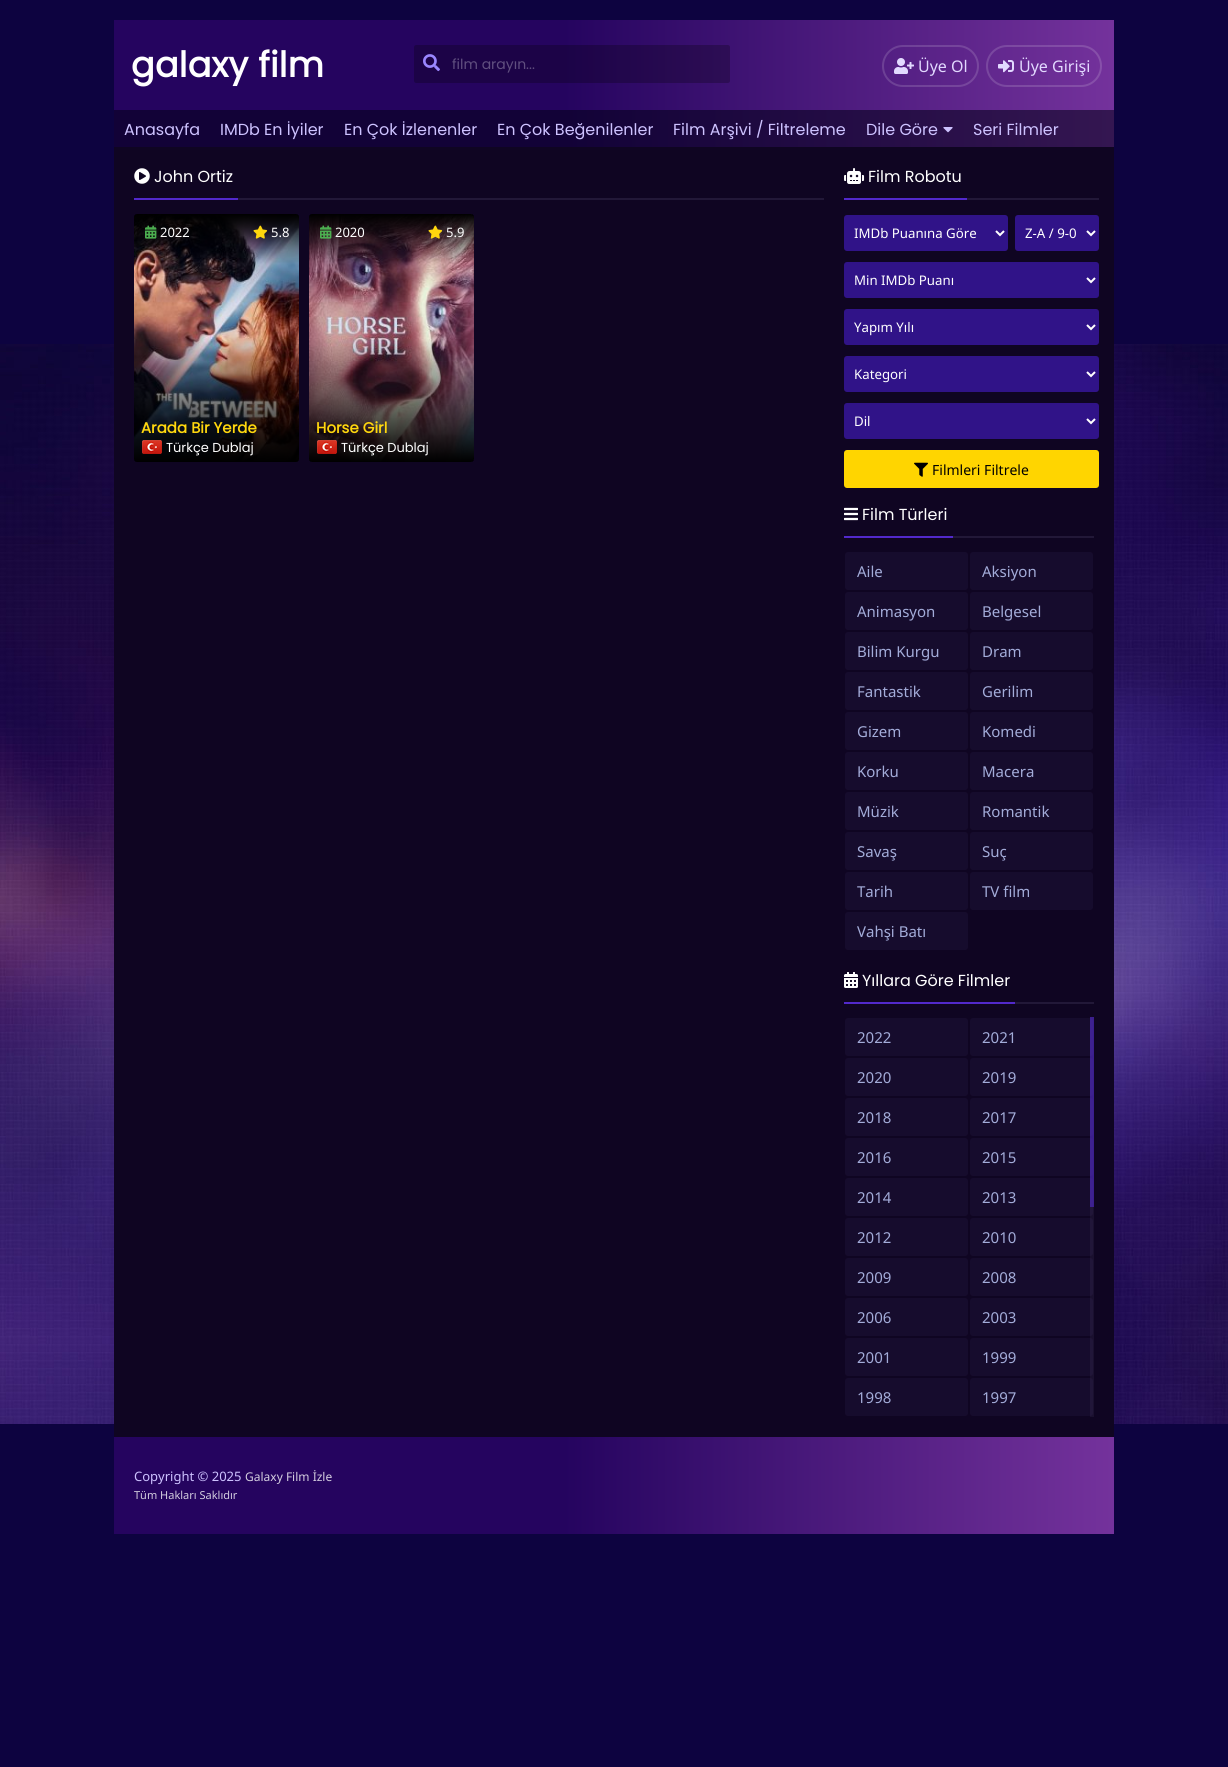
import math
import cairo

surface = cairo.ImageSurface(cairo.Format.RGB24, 1228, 1767)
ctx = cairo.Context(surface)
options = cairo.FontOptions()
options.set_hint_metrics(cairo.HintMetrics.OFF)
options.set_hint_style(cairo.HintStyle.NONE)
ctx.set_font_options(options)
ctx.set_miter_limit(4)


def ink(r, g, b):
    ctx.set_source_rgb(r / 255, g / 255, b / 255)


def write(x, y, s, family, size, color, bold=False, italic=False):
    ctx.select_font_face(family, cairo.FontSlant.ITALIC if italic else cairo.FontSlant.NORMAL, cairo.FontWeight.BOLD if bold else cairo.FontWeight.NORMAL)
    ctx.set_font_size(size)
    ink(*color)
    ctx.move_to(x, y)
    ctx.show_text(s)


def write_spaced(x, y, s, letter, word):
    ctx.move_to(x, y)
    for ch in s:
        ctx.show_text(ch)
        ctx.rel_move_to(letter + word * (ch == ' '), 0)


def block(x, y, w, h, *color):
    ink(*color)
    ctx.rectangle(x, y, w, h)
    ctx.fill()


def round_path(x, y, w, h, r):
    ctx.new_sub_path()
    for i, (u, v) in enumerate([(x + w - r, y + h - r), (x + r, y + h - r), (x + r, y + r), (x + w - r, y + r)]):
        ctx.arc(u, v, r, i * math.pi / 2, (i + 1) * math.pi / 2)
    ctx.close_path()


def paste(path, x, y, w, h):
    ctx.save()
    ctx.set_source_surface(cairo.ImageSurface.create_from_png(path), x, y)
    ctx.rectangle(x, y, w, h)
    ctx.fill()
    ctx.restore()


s1 = dict(family="Noto Sans", size=16, color=(226, 217, 255))
s2 = dict(family="Poppins", size=14, color=(96, 79, 127))
s3 = dict(family="Poppins", size=16, color=(205, 194, 255))
s4 = dict(family="Poppins", size=16, color=(255, 255, 255))
s5 = dict(family="Noto Sans", size=13, color=(255, 255, 255))
s6 = dict(family="Poppins", size=15, color=(255, 215, 13), bold=True)
s7 = dict(family="Poppins", size=13, color=(255, 255, 255))
s8 = dict(family="Noto Sans", size=13.25, color=(255, 255, 255))
s9 = dict(family="Noto Sans", size=14, color=(0, 0, 0))
s10 = dict(family="Noto Sans", size=15, color=(163, 172, 217))
s11 = dict(family="Noto Sans", size=13, color=(205, 194, 255))
s12 = dict(family="Noto Sans", size=12, color=(211, 205, 223))
s13 = dict(family="Noto Sans", size=11, color=(211, 205, 223))

ink(13, 3, 64)
ctx.paint()
paste("pic1.png", 0, 344, 1228, 1080)
block(114, 147, 1000, 1290, 15, 5, 34)
gradient = cairo.LinearGradient(114, 84, 1114, 83)
gradient.add_color_stop_rgba(0.45, 0.145, 0.016, 0.373, 1)
gradient.add_color_stop_rgba(1, 0.455, 0.196, 0.612, 1)
ctx.set_source(gradient)
ctx.rectangle(114, 20, 1000, 90)
ctx.fill()
gradient = cairo.LinearGradient(114, 84, 1114, 83)
gradient.add_color_stop_rgba(0.45, 0.071, 0.008, 0.216, 1)
gradient.add_color_stop_rgba(1, 0.204, 0.086, 0.318, 1)
ctx.set_source(gradient)
ctx.rectangle(114, 110, 1000, 37)
ctx.fill()
ctx.select_font_face("Poppins", cairo.FontSlant.NORMAL, cairo.FontWeight.BOLD)
ctx.set_font_size(35)
ink(255, 255, 255)
write_spaced(131, 77, "galaxy film", 0.25, 0)
round_path(883, 46, 95, 40, 20)
ctx.set_source_rgba(1, 1, 1, 0.15)
ctx.stroke()
paste("pic2.png", 894, 58, 20, 16)
write(918, 72, "Üye Ol", **s1)
round_path(987, 46, 114, 40, 20)
ctx.set_source_rgba(1, 1, 1, 0.15)
ctx.stroke()
paste("pic3.png", 998, 60, 16, 13)
write(1019, 72, "Üye Girişi", **s1)
ink(28, 3, 71)
ctx.new_path()
ctx.move_to(416, 45)
ctx.line_to(447, 45)
ctx.line_to(447, 83)
ctx.line_to(416, 83)
ctx.curve_to(415, 83, 414, 82, 414, 81)
ctx.line_to(414, 47)
ctx.curve_to(414, 46, 415, 45, 416, 45)
ctx.close_path()
ctx.fill()
paste("pic4.png", 423, 54, 17, 18)
ctx.set_source_rgba(0, 0, 0, 0.25)
ctx.new_path()
ctx.move_to(447, 45)
ctx.line_to(728, 45)
ctx.curve_to(729, 45, 730, 46, 730, 47)
ctx.line_to(730, 81)
ctx.curve_to(730, 82, 729, 83, 728, 83)
ctx.line_to(447, 83)
ctx.close_path()
ctx.fill()
write(452, 69, "film arayın...", **s2)
write(124, 135, "Anasayfa", **s3)
write(220, 135, "IMDb En İyiler", **s3)
write(344, 135, "En Çok İzlenenler", **s3)
write(497, 135, "En Çok Beğenilenler", **s3)
write(673, 135, "Film Arşivi / Filtreleme", **s3)
write(866, 135, "Dile Göre", **s3)
paste("pic5.png", 943, 127, 10, 6)
write(973, 135, "Seri Filmler", **s3)
block(238, 198, 586, 2, 34, 24, 56)
block(134, 198, 104, 2, 82, 41, 204)
paste("pic6.png", 134, 168, 16, 16)
write(154, 182, "John Ortiz", **s4)
ctx.set_source_rgba(0.02, 0.004, 0.102, 0.58)
round_path(134, 214, 165, 248, 3)
ctx.fill()
paste("pic7.png", 134, 214, 165, 248)
gradient = cairo.LinearGradient(217, 462, 217, 214)
gradient.add_color_stop_rgba(0.8, 0, 0, 0, 0)
gradient.add_color_stop_rgba(1, 0, 0, 0, 1)
ctx.set_source(gradient)
round_path(134, 214, 165, 248, 3)
ctx.fill()
gradient = cairo.LinearGradient(216, 214, 217, 462)
gradient.add_color_stop_rgba(0.5, 0, 0, 0, 0)
gradient.add_color_stop_rgba(1, 0, 0, 0, 1)
ctx.set_source(gradient)
round_path(134, 214, 165, 248, 3)
ctx.fill()
paste("pic8.png", 145, 225, 12, 14)
write(160, 237, "2022", **s5)
paste("pic9.png", 253, 225, 15, 14)
write(271, 237, "5.8", **s5)
write(141, 433, "Arada Bir Yerde", **s6)
paste("pic10.png", 142, 440, 20, 14)
write(166, 452, "Türkçe Dublaj", **s7)
ctx.set_source_rgba(0.02, 0.004, 0.102, 0.58)
round_path(309, 214, 165, 248, 3)
ctx.fill()
paste("pic11.png", 309, 214, 165, 248)
gradient = cairo.LinearGradient(392, 462, 392, 214)
gradient.add_color_stop_rgba(0.8, 0, 0, 0, 0)
gradient.add_color_stop_rgba(1, 0, 0, 0, 1)
ctx.set_source(gradient)
round_path(309, 214, 165, 248, 3)
ctx.fill()
gradient = cairo.LinearGradient(392, 214, 392, 462)
gradient.add_color_stop_rgba(0.5, 0, 0, 0, 0)
gradient.add_color_stop_rgba(1, 0, 0, 0, 1)
ctx.set_source(gradient)
round_path(309, 214, 165, 248, 3)
ctx.fill()
paste("pic12.png", 320, 225, 12, 14)
write(335, 237, "2020", **s5)
paste("pic13.png", 428, 225, 15, 14)
write(446, 237, "5.9", **s5)
write(316, 433, "Horse Girl", **s6)
paste("pic14.png", 317, 440, 20, 14)
write(341, 452, "Türkçe Dublaj", **s7)
block(967, 198, 132, 2, 34, 24, 56)
block(844, 198, 123, 2, 82, 41, 204)
paste("pic15.png", 844, 168, 21, 16)
write(868, 182, "Film Robotu", **s4)
ink(48, 19, 136)
round_path(844, 215, 164, 36, 3)
ctx.fill()
ctx.new_path()
ctx.move_to(996, 231)
ctx.line_to(1000, 235)
ctx.line_to(1004, 231)
ink(255, 255, 255)
ctx.stroke()
write(854, 238, "IMDb Puanına Göre", **s8)
ink(48, 19, 136)
round_path(1015, 215, 84, 36, 3)
ctx.fill()
ctx.new_path()
ctx.move_to(1087, 231)
ctx.line_to(1091, 235)
ctx.line_to(1095, 231)
ink(255, 255, 255)
ctx.stroke()
write(1025, 238, "Z-A / 9-0", **s8)
ink(48, 19, 136)
round_path(844, 262, 255, 36, 3)
ctx.fill()
ctx.new_path()
ctx.move_to(1087, 278)
ctx.line_to(1091, 282)
ctx.line_to(1095, 278)
ink(255, 255, 255)
ctx.stroke()
write(854, 285, "Min IMDb Puanı", **s8)
ink(48, 19, 136)
round_path(844, 309, 255, 36, 3)
ctx.fill()
ctx.new_path()
ctx.move_to(1087, 325)
ctx.line_to(1091, 329)
ctx.line_to(1095, 325)
ink(255, 255, 255)
ctx.stroke()
write(854, 332, "Yapım Yılı", **s8)
ink(48, 19, 136)
round_path(844, 356, 255, 36, 3)
ctx.fill()
ctx.new_path()
ctx.move_to(1087, 372)
ctx.line_to(1091, 376)
ctx.line_to(1095, 372)
ink(255, 255, 255)
ctx.stroke()
write(854, 379, "Kategori", **s8)
ink(48, 19, 136)
round_path(844, 403, 255, 36, 3)
ctx.fill()
ctx.new_path()
ctx.move_to(1087, 419)
ctx.line_to(1091, 423)
ctx.line_to(1095, 419)
ink(255, 255, 255)
ctx.stroke()
write(854, 426, "Dil", **s8)
ink(255, 213, 0)
round_path(844, 450, 255, 38, 3)
ctx.fill()
paste("pic16.png", 914, 462, 14, 15)
write(932, 475, "Filmleri Filtrele", **s9)
block(953, 536, 141, 2, 34, 24, 56)
block(844, 536, 109, 2, 82, 41, 204)
paste("pic17.png", 844, 507, 14, 14)
write(862, 520, "Film Türleri", **s4)
ink(22, 12, 45)
round_path(845, 552, 123, 38, 3)
ctx.fill()
write(857, 577, "Aile", **s10)
ink(22, 12, 45)
round_path(970, 552, 123, 38, 3)
ctx.fill()
write(982, 577, "Aksiyon", **s10)
ink(22, 12, 45)
round_path(845, 592, 123, 38, 3)
ctx.fill()
write(857, 617, "Animasyon", **s10)
ink(22, 12, 45)
round_path(970, 592, 123, 38, 3)
ctx.fill()
write(982, 617, "Belgesel", **s10)
ink(22, 12, 45)
round_path(845, 632, 123, 38, 3)
ctx.fill()
write(857, 657, "Bilim Kurgu", **s10)
ink(22, 12, 45)
round_path(970, 632, 123, 38, 3)
ctx.fill()
write(982, 657, "Dram", **s10)
ink(22, 12, 45)
round_path(845, 672, 123, 38, 3)
ctx.fill()
write(857, 697, "Fantastik", **s10)
ink(22, 12, 45)
round_path(970, 672, 123, 38, 3)
ctx.fill()
write(982, 697, "Gerilim", **s10)
ink(22, 12, 45)
round_path(845, 712, 123, 38, 3)
ctx.fill()
write(857, 737, "Gizem", **s10)
ink(22, 12, 45)
round_path(970, 712, 123, 38, 3)
ctx.fill()
write(982, 737, "Komedi", **s10)
ink(22, 12, 45)
round_path(845, 752, 123, 38, 3)
ctx.fill()
write(857, 777, "Korku", **s10)
ink(22, 12, 45)
round_path(970, 752, 123, 38, 3)
ctx.fill()
write(982, 777, "Macera", **s10)
ink(22, 12, 45)
round_path(845, 792, 123, 38, 3)
ctx.fill()
write(857, 817, "Müzik", **s10)
ink(22, 12, 45)
round_path(970, 792, 123, 38, 3)
ctx.fill()
write(982, 817, "Romantik", **s10)
ink(22, 12, 45)
round_path(845, 832, 123, 38, 3)
ctx.fill()
write(857, 857, "Savaş", **s10)
ink(22, 12, 45)
round_path(970, 832, 123, 38, 3)
ctx.fill()
write(982, 857, "Suç", **s10)
ink(22, 12, 45)
round_path(845, 872, 123, 38, 3)
ctx.fill()
write(857, 897, "Tarih", **s10)
ink(22, 12, 45)
round_path(970, 872, 123, 38, 3)
ctx.fill()
write(982, 897, "TV film", **s10)
ink(22, 12, 45)
round_path(845, 912, 123, 38, 3)
ctx.fill()
write(857, 937, "Vahşi Batı", **s10)
block(1015, 1002, 79, 2, 34, 24, 56)
block(844, 1002, 171, 2, 82, 41, 204)
paste("pic18.png", 844, 972, 14, 16)
write(862, 986, "Yıllara Göre Filmler", **s4)
ink(22, 12, 45)
round_path(845, 1018, 123, 38, 3)
ctx.fill()
write(857, 1043, "2022", **s10)
ink(22, 12, 45)
round_path(970, 1018, 123, 38, 3)
ctx.fill()
write(982, 1043, "2021", **s10)
ink(22, 12, 45)
round_path(970, 1058, 123, 38, 3)
ctx.fill()
round_path(970, 1098, 123, 38, 3)
ctx.fill()
round_path(970, 1138, 123, 38, 3)
ctx.fill()
round_path(970, 1178, 123, 38, 3)
ctx.fill()
round_path(970, 1218, 123, 38, 3)
ctx.fill()
round_path(970, 1258, 123, 38, 3)
ctx.fill()
round_path(970, 1298, 123, 38, 3)
ctx.fill()
round_path(970, 1338, 123, 38, 3)
ctx.fill()
round_path(970, 1378, 123, 38, 3)
ctx.fill()
ctx.set_source_rgba(0.804, 0.761, 1, 0.06)
ctx.rectangle(1090, 1017, 4, 400)
ctx.fill()
ctx.set_source_rgba(0.322, 0.161, 0.8, 0.6)
ctx.rectangle(1090, 1017, 4, 190)
ctx.fill()
ink(22, 12, 45)
round_path(845, 1058, 123, 38, 3)
ctx.fill()
write(857, 1083, "2020", **s10)
write(982, 1083, "2019", **s10)
ink(22, 12, 45)
round_path(845, 1098, 123, 38, 3)
ctx.fill()
write(857, 1123, "2018", **s10)
write(982, 1123, "2017", **s10)
ink(22, 12, 45)
round_path(845, 1138, 123, 38, 3)
ctx.fill()
write(857, 1163, "2016", **s10)
write(982, 1163, "2015", **s10)
ink(22, 12, 45)
round_path(845, 1178, 123, 38, 3)
ctx.fill()
write(857, 1203, "2014", **s10)
write(982, 1203, "2013", **s10)
ink(22, 12, 45)
round_path(845, 1218, 123, 38, 3)
ctx.fill()
write(857, 1243, "2012", **s10)
write(982, 1243, "2010", **s10)
ink(22, 12, 45)
round_path(845, 1258, 123, 38, 3)
ctx.fill()
write(857, 1283, "2009", **s10)
write(982, 1283, "2008", **s10)
ink(22, 12, 45)
round_path(845, 1298, 123, 38, 3)
ctx.fill()
write(857, 1323, "2006", **s10)
write(982, 1323, "2003", **s10)
ink(22, 12, 45)
round_path(845, 1338, 123, 38, 3)
ctx.fill()
write(857, 1363, "2001", **s10)
write(982, 1363, "1999", **s10)
ink(22, 12, 45)
round_path(845, 1378, 123, 38, 3)
ctx.fill()
write(857, 1403, "1998", **s10)
write(982, 1403, "1997", **s10)
gradient = cairo.LinearGradient(114, 1486, 1114, 1486)
gradient.add_color_stop_rgba(0.45, 0.145, 0.016, 0.373, 1)
gradient.add_color_stop_rgba(1, 0.455, 0.196, 0.612, 1)
ctx.set_source(gradient)
ctx.rectangle(114, 1437, 1000, 97)
ctx.fill()
write(134, 1481, "Copyright © 2025", **s11)
write(245, 1481, "Galaxy Film İzle", **s12)
write(134, 1499, "Tüm Hakları Saklıdır", **s13)
surface.write_to_png("screenshot.png")
